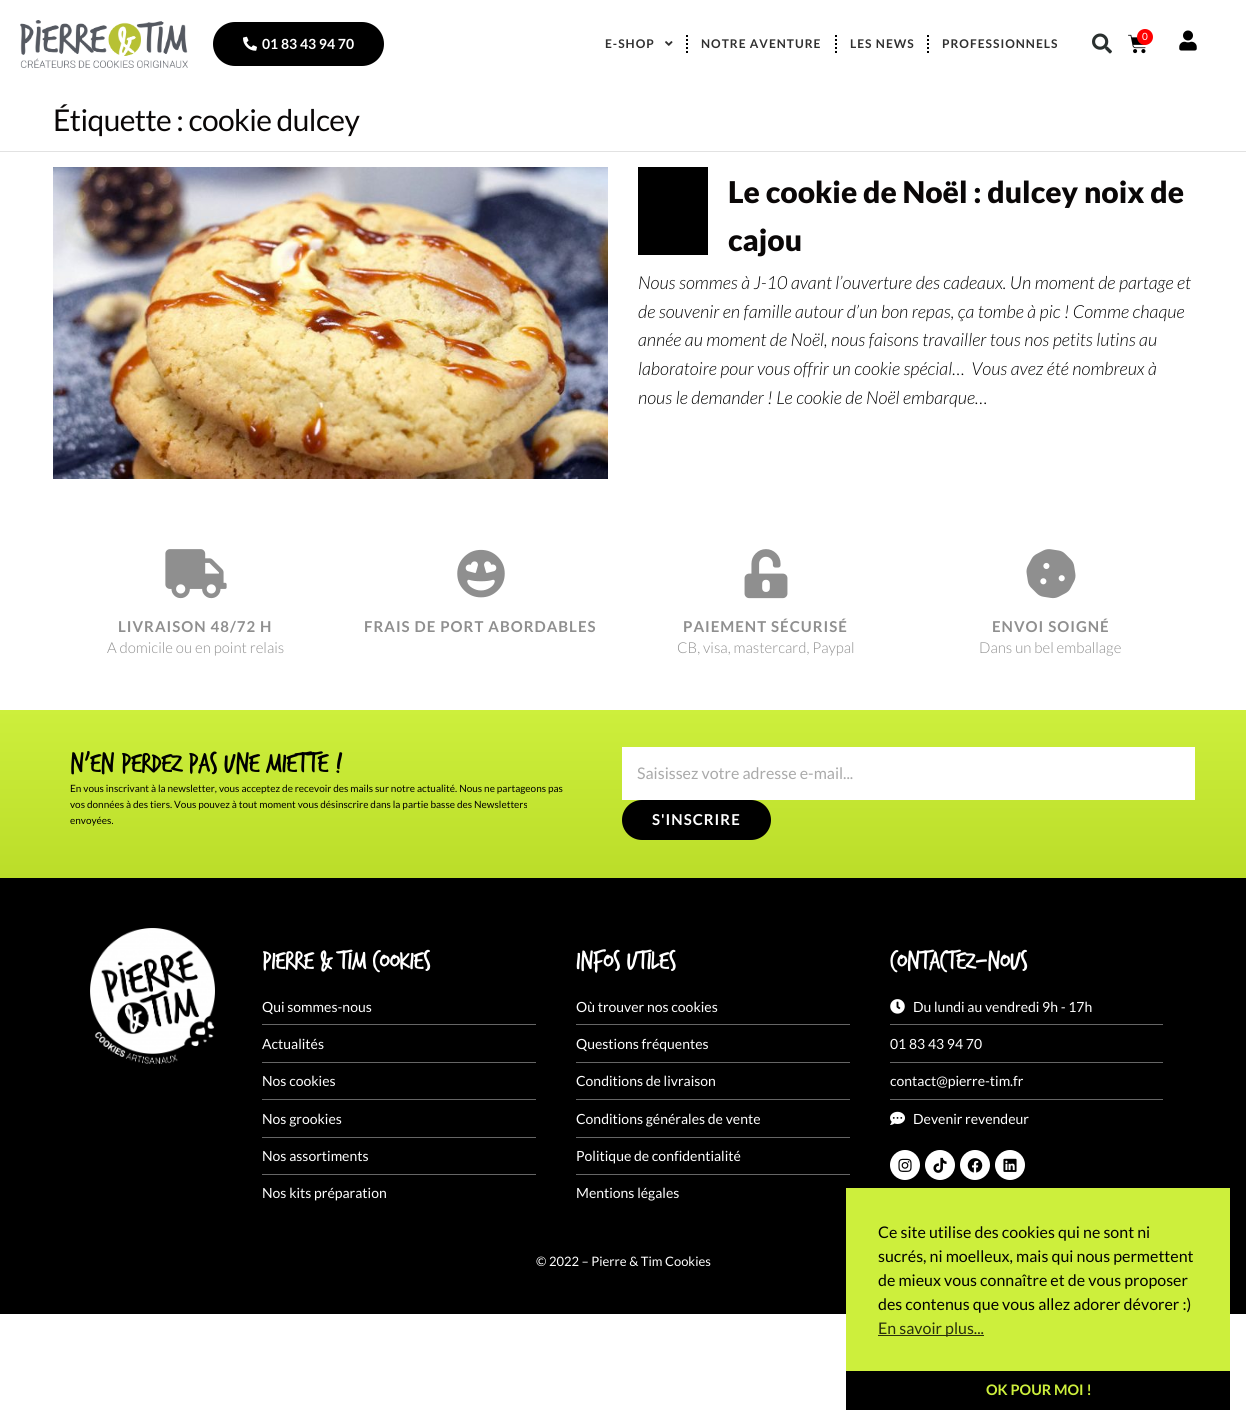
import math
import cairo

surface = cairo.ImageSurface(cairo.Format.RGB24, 1246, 1426)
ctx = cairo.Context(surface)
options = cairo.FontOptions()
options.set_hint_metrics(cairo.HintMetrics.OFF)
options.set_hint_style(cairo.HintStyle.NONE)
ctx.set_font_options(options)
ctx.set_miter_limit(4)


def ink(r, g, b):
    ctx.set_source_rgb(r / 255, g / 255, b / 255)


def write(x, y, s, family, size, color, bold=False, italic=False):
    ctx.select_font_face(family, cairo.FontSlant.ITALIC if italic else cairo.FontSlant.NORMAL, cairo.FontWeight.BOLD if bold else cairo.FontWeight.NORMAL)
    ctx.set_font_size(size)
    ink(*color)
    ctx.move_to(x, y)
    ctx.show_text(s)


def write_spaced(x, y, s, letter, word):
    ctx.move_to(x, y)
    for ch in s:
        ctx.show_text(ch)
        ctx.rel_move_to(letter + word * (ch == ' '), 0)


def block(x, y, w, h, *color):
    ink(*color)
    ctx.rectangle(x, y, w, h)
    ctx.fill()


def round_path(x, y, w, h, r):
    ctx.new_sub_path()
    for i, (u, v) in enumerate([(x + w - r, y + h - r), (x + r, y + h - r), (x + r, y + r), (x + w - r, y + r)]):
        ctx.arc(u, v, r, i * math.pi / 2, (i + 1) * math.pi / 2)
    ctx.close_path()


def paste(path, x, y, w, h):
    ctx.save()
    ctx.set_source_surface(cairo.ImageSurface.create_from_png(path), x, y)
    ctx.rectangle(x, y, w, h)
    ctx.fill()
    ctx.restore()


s1 = dict(family="Lato", size=14, color=(255, 255, 255), bold=True)
s2 = dict(family="Lato", size=10, color=(255, 255, 255))
s3 = dict(family="Lato Black", size=30, color=(10, 7, 7))
s4 = dict(family="Lato Light", size=18, color=(0, 0, 0), italic=True)
s5 = dict(family="Lato Light", size=15, color=(143, 143, 143))
s6 = dict(family="Lato", size=10, color=(0, 0, 0))
s7 = dict(family="Lato", size=16, color=(170, 170, 170))
s8 = dict(family="Lato", size=14, color=(255, 255, 255))
s9 = dict(family="Lato", size=13, color=(255, 255, 255))
s10 = dict(family="Lato", size=16, color=(0, 0, 0))
s11 = dict(family="Lato", size=16, color=(41, 48, 12))
s12 = dict(family="Lato", size=14.5, color=(205, 239, 60), bold=True)

ink(255, 255, 255)
ctx.paint()
paste("pic1.png", 20, 20, 168, 48)
ink(0, 0, 0)
round_path(213, 22, 171, 44, 22)
ctx.fill()
paste("pic2.png", 243, 36, 14, 15)
write(262, 49, "01 83 43 94 70", **s1)
ctx.set_font_size(12)
ink(48, 48, 48)
write_spaced(605, 48, "E-SHOP", 1, 0)
paste("pic3.png", 665, 41, 8, 5)
ctx.new_path()
ctx.move_to(687, 35)
ctx.line_to(687, 53)
ink(0, 0, 0)
ctx.set_dash([2, 2])
ctx.stroke()
ink(48, 48, 48)
write_spaced(701, 48, "NOTRE AVENTURE", 1, 0)
ctx.new_path()
ctx.move_to(836, 35)
ctx.line_to(836, 53)
ink(0, 0, 0)
ctx.stroke()
ink(48, 48, 48)
write_spaced(850, 48, "LES NEWS", 1, 0)
ctx.new_path()
ctx.move_to(928, 35)
ctx.line_to(928, 53)
ink(0, 0, 0)
ctx.stroke()
ink(48, 48, 48)
write_spaced(942, 48, "PROFESSIONNELS", 1, 0)
paste("pic4.png", 1092, 33, 20, 21)
paste("pic5.png", 1128, 34, 18, 20)
ink(255, 0, 0)
ctx.arc(1145, 37, 8, 0, 2 * math.pi)
ctx.fill()
write(1142, 40, "0", **s2)
paste("pic6.png", 1179, 30, 18, 21)
block(0, 151, 1246, 1, 226, 226, 226)
ctx.set_font_size(30)
ink(10, 7, 7)
write_spaced(53, 131, "Étiquette : cookie dulcey", -0.6, 0)
paste("pic7.png", 53, 167, 555, 312)
block(638, 167, 70, 88, 0, 0, 0)
write(728, 203, "Le cookie de Noël : dulcey noix de", **s3)
write(728, 251, "cajou", **s3)
write(638, 289, "Nous sommes à J-10 avant l’ouverture des cadeaux. Un moment de partage et", **s4)
write(638, 318, "de souvenir en famille autour d’un bon repas, ça tombe à pic ! Comme chaque", **s4)
write(638, 346, "année au moment de Noël, nous faisons travailler tous nos petits lutins au", **s4)
write(638, 375, "laboratoire pour vous offrir un cookie spécial…  Vous avez été nombreux à", **s4)
write(638, 404, "nous le demander ! Le cookie de Noël embarque…", **s4)
paste("pic8.png", 165, 549, 62, 50)
ctx.select_font_face("Lato", cairo.FontSlant.NORMAL, cairo.FontWeight.BOLD)
ctx.set_font_size(15)
ink(143, 143, 143)
write_spaced(118, 632, "LIVRAISON 48/72 H", 1, 0)
write(107, 653, "A domicile ou en point relais", **s5)
paste("pic9.png", 457, 549, 48, 49)
ctx.select_font_face("Lato", cairo.FontSlant.NORMAL, cairo.FontWeight.BOLD)
write_spaced(364, 632, "FRAIS DE PORT ABORDABLES", 1, 0)
paste("pic10.png", 744, 549, 44, 50)
write_spaced(683, 632, "PAIEMENT SÉCURISÉ", 1, 0)
write(677, 653, "CB, visa, mastercard, Paypal", **s5)
paste("pic11.png", 1026, 549, 50, 50)
ctx.select_font_face("Lato", cairo.FontSlant.NORMAL, cairo.FontWeight.BOLD)
write_spaced(992, 632, "ENVOI SOIGNÉ", 1, 0)
write(979, 653, "Dans un bel emballage", **s5)
gradient = cairo.LinearGradient(623, 710, 623, 878)
gradient.add_color_stop_rgba(0, 0.804, 0.937, 0.235, 1)
gradient.add_color_stop_rgba(1, 0.733, 0.867, 0.161, 1)
ctx.set_source(gradient)
ctx.rectangle(0, 710, 1246, 168)
ctx.fill()
ctx.select_font_face("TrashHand")
ctx.set_font_size(30)
ink(0, 0, 0)
write_spaced(70, 771, "N'en Perdez pas une miette !", -0.6, 0)
write(70, 792, "En vous inscrivant à la newsletter, vous acceptez de recevoir des mails sur notre actualité. Nous ne partageons pas", **s6)
write(70, 808, "vos données à des tiers. Vous pouvez à tout moment vous désinscrire dans la partie basse des Newsletters", **s6)
write(70, 824, "envoyées.", **s6)
block(622, 747, 573, 53, 255, 255, 255)
write(637, 779, "Saisissez votre adresse e-mail...", **s7)
ink(0, 0, 0)
round_path(622, 800, 149, 40, 20)
ctx.fill()
ctx.select_font_face("Lato", cairo.FontSlant.NORMAL, cairo.FontWeight.BOLD)
ctx.set_font_size(15)
ink(255, 255, 255)
write_spaced(652, 825, "S'INSCRIRE", 1, 0)
block(0, 878, 1246, 436, 0, 0, 0)
paste("pic12.png", 90, 928, 125, 136)
ctx.select_font_face("TrashHand")
ctx.set_font_size(28)
ink(255, 255, 255)
write_spaced(262, 968, "Pierre & Tim Cookies", -0.6, 0)
write(262, 1012, "Qui sommes-nous", **s8)
block(262, 1024, 274, 1, 102, 102, 102)
write(262, 1049, "Actualités", **s8)
block(262, 1062, 274, 1, 102, 102, 102)
write(262, 1086, "Nos cookies", **s8)
block(262, 1099, 274, 1, 102, 102, 102)
write(262, 1124, "Nos grookies", **s8)
block(262, 1137, 274, 1, 102, 102, 102)
write(262, 1161, "Nos assortiments", **s8)
block(262, 1174, 274, 1, 102, 102, 102)
write(262, 1198, "Nos kits préparation", **s8)
ctx.select_font_face("TrashHand")
ctx.set_font_size(28)
write_spaced(576, 968, "Infos utiles", -0.6, 0)
write(576, 1012, "Où trouver nos cookies", **s8)
block(576, 1024, 274, 1, 102, 102, 102)
write(576, 1049, "Questions fréquentes", **s8)
block(576, 1062, 274, 1, 102, 102, 102)
write(576, 1086, "Conditions de livraison", **s8)
block(576, 1099, 274, 1, 102, 102, 102)
write(576, 1124, "Conditions générales de vente", **s8)
block(576, 1137, 274, 1, 102, 102, 102)
write(576, 1161, "Politique de confidentialité", **s8)
block(576, 1174, 274, 1, 102, 102, 102)
write(576, 1198, "Mentions légales", **s8)
ctx.select_font_face("TrashHand")
ctx.set_font_size(28)
write_spaced(890, 968, "Contactez-nous", -0.6, 0)
paste("pic13.png", 890, 999, 15, 15)
write(913, 1012, "Du lundi au vendredi 9h - 17h", **s8)
block(890, 1024, 273, 1, 102, 102, 102)
write(890, 1049, "01 83 43 94 70", **s8)
block(890, 1062, 273, 1, 102, 102, 102)
write(890, 1086, "contact@pierre-tim.fr", **s8)
block(890, 1099, 273, 1, 102, 102, 102)
paste("pic14.png", 890, 1111, 15, 14)
write(913, 1124, "Devenir revendeur", **s8)
ctx.new_path()
ctx.arc(905, 1165, 15, 0, 2 * math.pi)
ctx.fill()
paste("pic15.png", 898, 1158, 14, 14)
ctx.arc(940, 1165, 15, 0, 2 * math.pi)
ctx.fill()
paste("pic16.png", 933, 1157, 14, 16)
ctx.arc(975, 1165, 15, 0, 2 * math.pi)
ctx.fill()
paste("pic17.png", 967, 1158, 16, 15)
ctx.arc(1010, 1165, 15, 0, 2 * math.pi)
ctx.fill()
paste("pic18.png", 1003, 1158, 14, 14)
write(536, 1266, "© 2022 – Pierre & Tim Cookies", **s9)
block(846, 1188, 384, 183, 205, 239, 60)
write(878, 1238, "Ce site utilise des cookies qui ne sont ni", **s10)
write(878, 1262, "sucrés, ni moelleux, mais qui nous permettent", **s10)
write(878, 1286, "de mieux vous connaître et de vous proposer", **s10)
write(878, 1310, "des contenus que vous allez adorer dévorer :)", **s10)
block(878, 1335, 106, 1, 41, 48, 12)
write(878, 1334, "En savoir plus...", **s11)
block(846, 1371, 384, 39, 0, 0, 0)
write(986, 1395, "OK POUR MOI !", **s12)
surface.write_to_png("screenshot.png")
